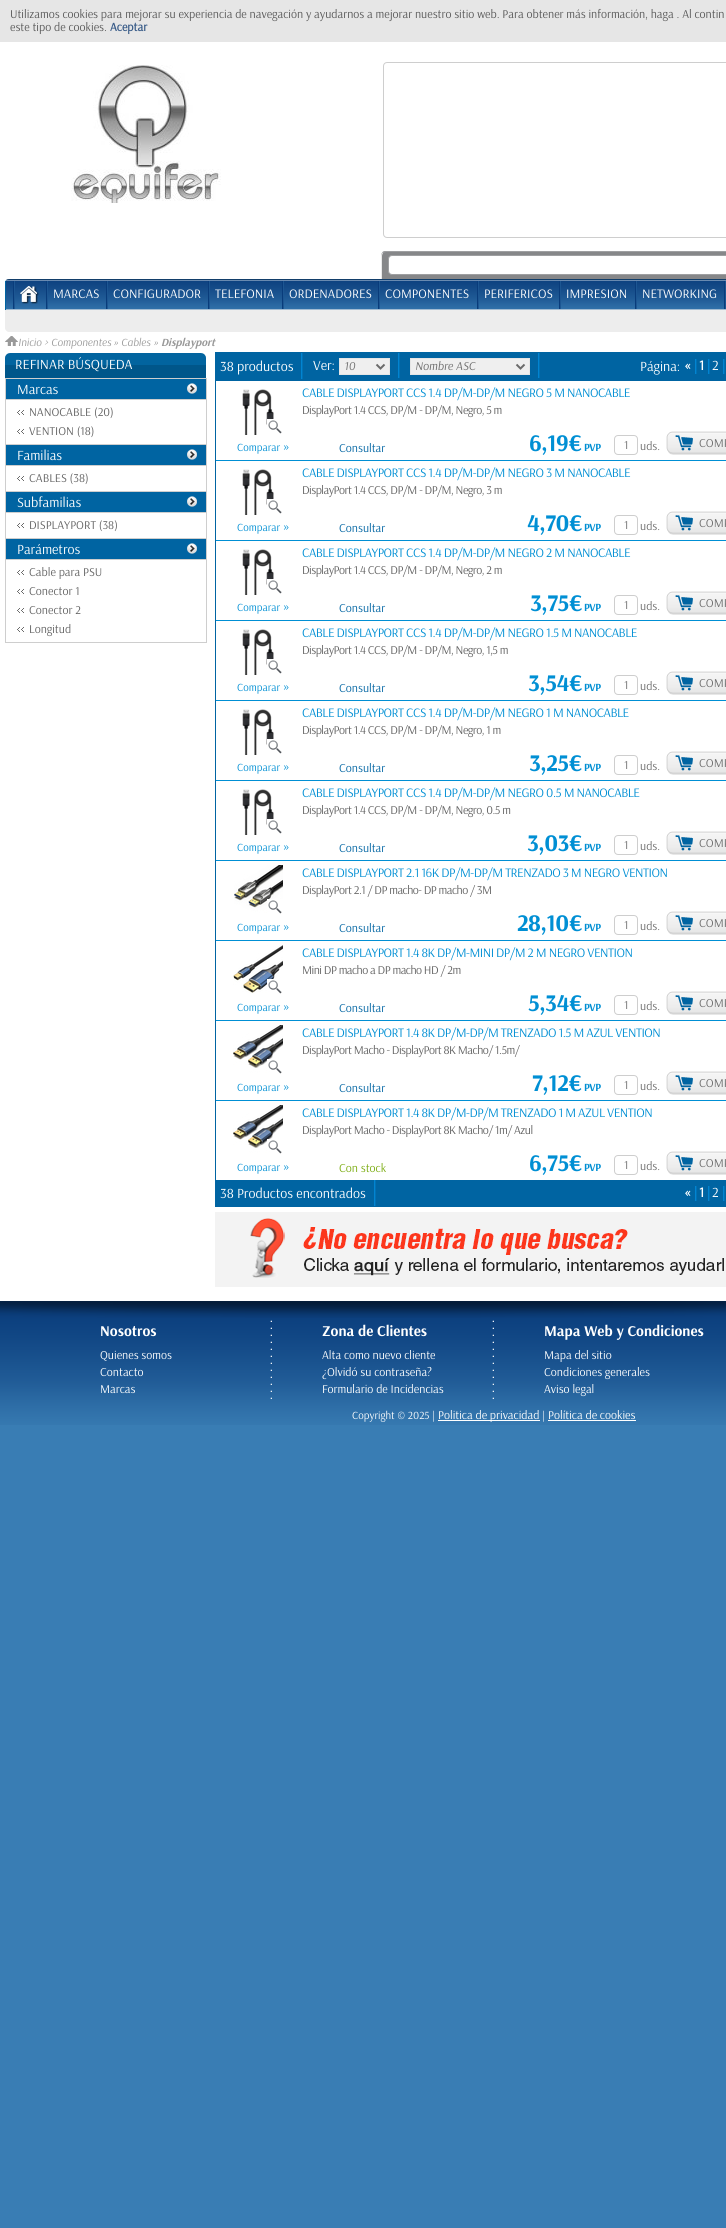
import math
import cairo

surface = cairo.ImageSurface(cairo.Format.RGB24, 726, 2228)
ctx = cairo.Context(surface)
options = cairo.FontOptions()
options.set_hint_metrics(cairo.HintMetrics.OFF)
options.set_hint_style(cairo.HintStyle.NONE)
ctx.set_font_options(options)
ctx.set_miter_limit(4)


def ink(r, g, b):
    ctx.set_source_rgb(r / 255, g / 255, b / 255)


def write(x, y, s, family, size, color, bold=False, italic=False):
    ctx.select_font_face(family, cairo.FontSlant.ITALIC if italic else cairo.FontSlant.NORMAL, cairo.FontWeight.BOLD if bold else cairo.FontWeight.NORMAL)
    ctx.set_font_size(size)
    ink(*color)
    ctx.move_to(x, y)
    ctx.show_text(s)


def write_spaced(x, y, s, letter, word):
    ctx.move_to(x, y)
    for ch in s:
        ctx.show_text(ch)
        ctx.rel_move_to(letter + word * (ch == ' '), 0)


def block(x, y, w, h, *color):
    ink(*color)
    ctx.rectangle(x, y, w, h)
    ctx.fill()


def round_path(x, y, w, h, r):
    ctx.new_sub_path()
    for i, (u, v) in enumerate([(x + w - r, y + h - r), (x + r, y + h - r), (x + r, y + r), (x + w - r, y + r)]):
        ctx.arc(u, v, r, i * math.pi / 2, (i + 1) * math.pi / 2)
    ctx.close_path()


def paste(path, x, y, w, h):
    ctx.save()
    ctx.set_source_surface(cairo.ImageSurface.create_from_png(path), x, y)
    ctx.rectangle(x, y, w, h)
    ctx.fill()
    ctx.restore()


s1 = dict(family="Arsenal", size=12, color=(88, 88, 88))
s2 = dict(family="Arsenal", size=12, color=(56, 91, 136), bold=True)
s3 = dict(family="Arsenal", size=13, color=(255, 255, 255))
s4 = dict(family="Arsenal", size=11, color=(153, 153, 153), italic=True)
s5 = dict(family="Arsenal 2", size=11, color=(153, 153, 153), italic=True)
s6 = dict(family="Arsenal", size=11, color=(153, 153, 153), bold=True, italic=True)
s7 = dict(family="Arsenal", size=14, color=(255, 255, 255))
s8 = dict(family="Arsenal", size=12, color=(98, 98, 98))
s9 = dict(family="Arsenal", size=12, color=(107, 107, 107), italic=True)
s10 = dict(family="Arsenal", size=14, color=(255, 255, 255), bold=True)
s11 = dict(family="Arsenal", size=11, color=(0, 143, 212))
s12 = dict(family="Arsenal", size=14, color=(0, 143, 212))
s13 = dict(family="Arsenal", size=12, color=(0, 100, 162))
s14 = dict(family="Arsenal", size=12, color=(107, 107, 107))
s15 = dict(family="Arsenal", size=12, color=(122, 171, 15))
s16 = dict(family="Arsenal 2", size=15, color=(255, 255, 255), bold=True)
s17 = dict(family="Arsenal", size=12, color=(255, 255, 255))
s18 = dict(family="Arsenal", size=11, color=(255, 255, 255))

ink(57, 125, 180)
ctx.paint()
block(0, 0, 726, 42, 230, 230, 230)
write(10, 18, "Utilizamos cookies para mejorar su experiencia de navegación y ayudarnos a mejorar nuestro sitio web. Para obtener más información, haga . Al contin", **s1)
write(10, 31, "este tipo de cookies.", **s1)
write(110, 31, "Aceptar", **s2)
block(0, 42, 726, 1259, 255, 255, 255)
paste("pic1.png", 71, 65, 150, 138)
round_path(383.5, 62.5, 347, 175, 3.5)
ink(206, 206, 206)
ctx.set_line_width(1)
ctx.stroke()
ink(134, 135, 137)
ctx.new_path()
ctx.move_to(386, 251)
ctx.line_to(726, 251)
ctx.curve_to(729, 251, 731, 253, 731, 256)
ctx.line_to(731, 279)
ctx.line_to(381, 279)
ctx.line_to(381, 256)
ctx.curve_to(381, 253, 383, 251, 386, 251)
ctx.close_path()
ctx.fill()
ink(158, 159, 161)
ctx.new_path()
ctx.move_to(386, 251)
ctx.curve_to(384, 251, 383, 252, 382, 252)
ctx.line_to(383, 253)
ctx.line_to(386, 252)
ctx.line_to(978, 252)
ctx.line_to(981, 253)
ctx.line_to(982, 252)
ctx.curve_to(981, 252, 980, 251, 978, 251)
ctx.close_path()
ctx.fill()
ink(234, 234, 234)
ctx.new_path()
ctx.move_to(381, 279)
ctx.line_to(382, 279)
ctx.line_to(382, 256)
ctx.curve_to(382, 255, 382.5, 254, 383, 253)
ctx.line_to(382.5, 252.5)
ctx.curve_to(381.5, 253, 381, 254.5, 381, 256)
ctx.close_path()
ctx.fill()
ink(255, 255, 255)
round_path(388.5, 255.5, 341, 19, 3.5)
ctx.fill_preserve()
ink(158, 159, 161)
ctx.stroke()
paste("pic2.png", 5, 279, 721, 31)
block(5, 281, 1, 29, 0, 100, 162)
paste("pic3.png", 13, 281, 2, 28)
paste("pic4.png", 20, 286, 19, 18)
paste("pic3.png", 46, 281, 2, 28)
write(53, 298, "MARCAS", **s3)
paste("pic3.png", 106, 281, 2, 28)
write(113, 298, "CONFIGURADOR", **s3)
paste("pic3.png", 208, 281, 2, 28)
write(215, 298, "TELEFONIA", **s3)
paste("pic3.png", 282, 281, 2, 28)
write(289, 298, "ORDENADORES", **s3)
paste("pic3.png", 378, 281, 2, 28)
write(385, 298, "COMPONENTES", **s3)
paste("pic3.png", 477, 281, 2, 28)
write(484, 298, "PERIFERICOS", **s3)
paste("pic3.png", 559, 281, 2, 28)
write(566, 298, "IMPRESION", **s3)
paste("pic3.png", 635, 281, 2, 28)
write(642, 298, "NETWORKING", **s3)
paste("pic3.png", 724, 281, 2, 28)
ink(237, 237, 237)
ctx.new_path()
ctx.move_to(5, 310)
ctx.line_to(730, 310)
ctx.line_to(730, 328)
ctx.curve_to(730, 330, 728, 332, 726, 332)
ctx.line_to(9, 332)
ctx.curve_to(7, 332, 5, 330, 5, 328)
ctx.close_path()
ctx.fill()
paste("pic5.png", 5, 336, 13, 10)
write(18, 346, "Inicio", **s4)
write(44, 346, ">", **s5)
write(51, 346, "Componentes", **s4)
write(113, 346, "»", **s5)
write(121, 346, "Cables", **s4)
write(153, 346, "»", **s5)
write(161, 346, "Displayport", **s6)
paste("pic6.png", 5, 353, 201, 25)
write(15, 369, "REFINAR BÚSQUEDA", **s7)
block(5, 378, 202, 1, 206, 206, 206)
block(206, 378, 1, 265, 206, 206, 206)
block(5, 378, 1, 265, 206, 206, 206)
block(6, 379, 200, 20, 0, 100, 162)
paste("pic7.png", 187, 383, 10, 11)
write(17, 394, "Marcas", **s7)
block(6, 399, 200, 1, 206, 206, 206)
block(6, 444, 200, 1, 206, 206, 206)
paste("pic8.png", 17, 410, 7, 5)
write(29, 416, "NANOCABLE (20)", **s8)
paste("pic8.png", 17, 429, 7, 5)
write(29, 435, "VENTION (18)", **s8)
block(6, 445, 200, 20, 0, 100, 162)
paste("pic7.png", 187, 449, 10, 11)
write(17, 460, "Familias", **s7)
block(6, 465, 200, 1, 206, 206, 206)
block(6, 491, 200, 1, 206, 206, 206)
paste("pic8.png", 17, 476, 7, 5)
write(29, 482, "CABLES (38)", **s8)
block(6, 492, 200, 20, 0, 100, 162)
paste("pic7.png", 187, 496, 10, 11)
write(17, 507, "Subfamilias", **s7)
block(6, 512, 200, 1, 206, 206, 206)
block(6, 538, 200, 1, 206, 206, 206)
paste("pic8.png", 17, 523, 7, 5)
write(29, 529, "DISPLAYPORT (38)", **s8)
block(6, 539, 200, 20, 0, 100, 162)
paste("pic7.png", 187, 543, 10, 11)
write(17, 554, "Parámetros", **s7)
block(6, 559, 200, 1, 206, 206, 206)
block(6, 642, 200, 1, 206, 206, 206)
paste("pic8.png", 17, 570, 7, 5)
write(29, 576, "Cable para PSU", **s8)
paste("pic8.png", 17, 589, 7, 5)
write(29, 595, "Conector 1", **s8)
paste("pic8.png", 17, 608, 7, 5)
write(29, 614, "Conector 2", **s8)
paste("pic8.png", 17, 627, 7, 5)
write(29, 633, "Longitud", **s8)
block(215, 352, 511, 29, 0, 100, 162)
paste("pic9.png", 301, 353, 2, 26)
write(220, 371, "38 productos", **s7)
paste("pic10.png", 398, 353, 2, 25)
write(313, 370, "Ver:", **s7)
ink(239, 239, 239)
ctx.rectangle(339.5, 358.5, 50, 16)
ctx.fill_preserve()
ink(229, 229, 229)
ctx.stroke()
ctx.new_path()
ctx.move_to(376.5, 364.5)
ctx.line_to(380.5, 368.5)
ctx.line_to(384.5, 364.5)
ink(107, 107, 107)
ctx.set_line_width(2)
ctx.stroke()
write(344, 370, "10", **s9)
paste("pic10.png", 538, 353, 2, 25)
ink(239, 239, 239)
ctx.rectangle(410.5, 358.5, 119, 16)
ctx.fill_preserve()
ink(229, 229, 229)
ctx.set_line_width(1)
ctx.stroke()
ctx.new_path()
ctx.move_to(516.5, 364.5)
ctx.line_to(520.5, 368.5)
ctx.line_to(524.5, 364.5)
ink(107, 107, 107)
ctx.set_line_width(2)
ctx.stroke()
write(415, 370, "Nombre ASC", **s9)
write(640, 371, "Página:", **s7)
write(684, 370, "«", **s10)
paste("pic11.png", 695, 359, 2, 15)
write(699, 370, "1", **s10)
paste("pic11.png", 708, 359, 2, 15)
write(712, 370, "2", **s7)
paste("pic11.png", 723, 359, 2, 15)
block(215, 381, 1, 799, 0, 100, 162)
block(216, 460, 510, 1, 0, 143, 212)
paste("pic12.png", 242, 389, 40, 46)
write(237, 451, "Comparar", **s11)
write(283, 451, "»", **s12)
ctx.set_font_size(13)
write_spaced(302, 397, "CABLE DISPLAYPORT CCS 1.4 DP/M-DP/M NEGRO 5 M NANOCABLE", -0.5, 0)
ctx.set_font_size(12)
ink(98, 98, 98)
write_spaced(302, 414, "DisplayPort 1.4 CCS, DP/M - DP/M, Negro, 5 m", -0.5, 0)
write(339, 452, "Consultar", **s13)
ctx.select_font_face("Arsenal 2", cairo.FontSlant.NORMAL, cairo.FontWeight.BOLD)
ctx.set_font_size(24)
ink(0, 143, 212)
write_spaced(529, 451, "6,19€", -0.5, 0)
ctx.set_font_size(11)
write_spaced(584, 451, "PVP", -0.5, 0)
paste("pic13.png", 666, 431, 60, 24)
round_path(614.5, 435.5, 23, 19, 3.5)
ink(206, 206, 206)
ctx.set_line_width(1)
ctx.stroke()
write(624, 449, "1", **s14)
write(640, 450, "uds.", **s14)
write(699, 447, "COMP", **s14)
block(216, 540, 510, 1, 0, 143, 212)
paste("pic12.png", 242, 469, 40, 46)
write(237, 531, "Comparar", **s11)
write(283, 531, "»", **s12)
ctx.set_font_size(13)
write_spaced(302, 477, "CABLE DISPLAYPORT CCS 1.4 DP/M-DP/M NEGRO 3 M NANOCABLE", -0.5, 0)
ctx.set_font_size(12)
ink(98, 98, 98)
write_spaced(302, 494, "DisplayPort 1.4 CCS, DP/M - DP/M, Negro, 3 m", -0.5, 0)
write(339, 532, "Consultar", **s13)
ctx.select_font_face("Arsenal 2", cairo.FontSlant.NORMAL, cairo.FontWeight.BOLD)
ctx.set_font_size(24)
ink(0, 143, 212)
write_spaced(527, 531, "4,70€", -0.5, 0)
ctx.set_font_size(11)
write_spaced(584, 531, "PVP", -0.5, 0)
paste("pic13.png", 666, 511, 60, 24)
round_path(614.5, 515.5, 23, 19, 3.5)
ink(206, 206, 206)
ctx.stroke()
write(624, 529, "1", **s14)
write(640, 530, "uds.", **s14)
write(699, 527, "COMP", **s14)
block(216, 620, 510, 1, 0, 143, 212)
paste("pic12.png", 242, 549, 40, 46)
write(237, 611, "Comparar", **s11)
write(283, 611, "»", **s12)
ctx.set_font_size(13)
write_spaced(302, 557, "CABLE DISPLAYPORT CCS 1.4 DP/M-DP/M NEGRO 2 M NANOCABLE", -0.5, 0)
ctx.set_font_size(12)
ink(98, 98, 98)
write_spaced(302, 574, "DisplayPort 1.4 CCS, DP/M - DP/M, Negro, 2 m", -0.5, 0)
write(339, 612, "Consultar", **s13)
ctx.select_font_face("Arsenal 2", cairo.FontSlant.NORMAL, cairo.FontWeight.BOLD)
ctx.set_font_size(24)
ink(0, 143, 212)
write_spaced(530, 611, "3,75€", -0.5, 0)
ctx.set_font_size(11)
write_spaced(584, 611, "PVP", -0.5, 0)
paste("pic13.png", 666, 591, 60, 24)
round_path(614.5, 595.5, 23, 19, 3.5)
ink(206, 206, 206)
ctx.stroke()
write(624, 609, "1", **s14)
write(640, 610, "uds.", **s14)
write(699, 607, "COMP", **s14)
block(216, 700, 510, 1, 0, 143, 212)
paste("pic12.png", 242, 629, 40, 46)
write(237, 691, "Comparar", **s11)
write(283, 691, "»", **s12)
ctx.set_font_size(13)
write_spaced(302, 637, "CABLE DISPLAYPORT CCS 1.4 DP/M-DP/M NEGRO 1.5 M NANOCABLE", -0.5, 0)
ctx.set_font_size(12)
ink(98, 98, 98)
write_spaced(302, 654, "DisplayPort 1.4 CCS, DP/M - DP/M, Negro, 1,5 m", -0.5, 0)
write(339, 692, "Consultar", **s13)
ctx.select_font_face("Arsenal 2", cairo.FontSlant.NORMAL, cairo.FontWeight.BOLD)
ctx.set_font_size(24)
ink(0, 143, 212)
write_spaced(528, 691, "3,54€", -0.5, 0)
ctx.set_font_size(11)
write_spaced(584, 691, "PVP", -0.5, 0)
paste("pic13.png", 666, 671, 60, 24)
round_path(614.5, 675.5, 23, 19, 3.5)
ink(206, 206, 206)
ctx.stroke()
write(624, 689, "1", **s14)
write(640, 690, "uds.", **s14)
write(699, 687, "COMP", **s14)
block(216, 780, 510, 1, 0, 143, 212)
paste("pic12.png", 242, 709, 40, 46)
write(237, 771, "Comparar", **s11)
write(283, 771, "»", **s12)
ctx.set_font_size(13)
write_spaced(302, 717, "CABLE DISPLAYPORT CCS 1.4 DP/M-DP/M NEGRO 1 M NANOCABLE", -0.5, 0)
ctx.set_font_size(12)
ink(98, 98, 98)
write_spaced(302, 734, "DisplayPort 1.4 CCS, DP/M - DP/M, Negro, 1 m", -0.5, 0)
write(339, 772, "Consultar", **s13)
ctx.select_font_face("Arsenal 2", cairo.FontSlant.NORMAL, cairo.FontWeight.BOLD)
ctx.set_font_size(24)
ink(0, 143, 212)
write_spaced(529, 771, "3,25€", -0.5, 0)
ctx.set_font_size(11)
write_spaced(584, 771, "PVP", -0.5, 0)
paste("pic13.png", 666, 751, 60, 24)
round_path(614.5, 755.5, 23, 19, 3.5)
ink(206, 206, 206)
ctx.stroke()
write(624, 769, "1", **s14)
write(640, 770, "uds.", **s14)
write(699, 767, "COMP", **s14)
block(216, 860, 510, 1, 0, 143, 212)
paste("pic12.png", 242, 789, 40, 46)
write(237, 851, "Comparar", **s11)
write(283, 851, "»", **s12)
ctx.set_font_size(13)
write_spaced(302, 797, "CABLE DISPLAYPORT CCS 1.4 DP/M-DP/M NEGRO 0.5 M NANOCABLE", -0.5, 0)
ctx.set_font_size(12)
ink(98, 98, 98)
write_spaced(302, 814, "DisplayPort 1.4 CCS, DP/M - DP/M, Negro, 0.5 m", -0.5, 0)
write(339, 852, "Consultar", **s13)
ctx.select_font_face("Arsenal 2", cairo.FontSlant.NORMAL, cairo.FontWeight.BOLD)
ctx.set_font_size(24)
ink(0, 143, 212)
write_spaced(527, 851, "3,03€", -0.5, 0)
ctx.set_font_size(11)
write_spaced(584, 851, "PVP", -0.5, 0)
paste("pic13.png", 666, 831, 60, 24)
round_path(614.5, 835.5, 23, 19, 3.5)
ink(206, 206, 206)
ctx.stroke()
write(624, 849, "1", **s14)
write(640, 850, "uds.", **s14)
write(699, 847, "COMP", **s14)
block(216, 940, 510, 1, 0, 143, 212)
paste("pic14.png", 234, 865, 49, 49)
write(237, 931, "Comparar", **s11)
write(283, 931, "»", **s12)
ctx.set_font_size(13)
write_spaced(302, 877, "CABLE DISPLAYPORT 2.1 16K DP/M-DP/M TRENZADO 3 M NEGRO VENTION", -0.5, 0)
ctx.set_font_size(12)
ink(98, 98, 98)
write_spaced(302, 894, "DisplayPort 2.1 / DP macho- DP macho / 3M", -0.5, 0)
write(339, 932, "Consultar", **s13)
ctx.select_font_face("Arsenal 2", cairo.FontSlant.NORMAL, cairo.FontWeight.BOLD)
ctx.set_font_size(24)
ink(0, 143, 212)
write_spaced(517, 931, "28,10€", -0.5, 0)
ctx.set_font_size(11)
write_spaced(584, 931, "PVP", -0.5, 0)
paste("pic13.png", 666, 911, 60, 24)
round_path(614.5, 915.5, 23, 19, 3.5)
ink(206, 206, 206)
ctx.stroke()
write(624, 929, "1", **s14)
write(640, 930, "uds.", **s14)
write(699, 927, "COMP", **s14)
block(216, 1020, 510, 1, 0, 143, 212)
paste("pic15.png", 233, 945, 50, 49)
write(237, 1011, "Comparar", **s11)
write(283, 1011, "»", **s12)
ctx.set_font_size(13)
write_spaced(302, 957, "CABLE DISPLAYPORT 1.4 8K DP/M-MINI DP/M 2 M NEGRO VENTION", -0.5, 0)
ctx.set_font_size(12)
ink(98, 98, 98)
write_spaced(302, 974, "Mini DP macho a DP macho HD / 2m", -0.5, 0)
write(339, 1012, "Consultar", **s13)
ctx.select_font_face("Arsenal 2", cairo.FontSlant.NORMAL, cairo.FontWeight.BOLD)
ctx.set_font_size(24)
ink(0, 143, 212)
write_spaced(528, 1011, "5,34€", -0.5, 0)
ctx.set_font_size(11)
write_spaced(584, 1011, "PVP", -0.5, 0)
paste("pic13.png", 666, 991, 60, 24)
round_path(614.5, 995.5, 23, 19, 3.5)
ink(206, 206, 206)
ctx.stroke()
write(624, 1009, "1", **s14)
write(640, 1010, "uds.", **s14)
write(699, 1007, "COMP", **s14)
block(216, 1100, 510, 1, 0, 143, 212)
paste("pic16.png", 233, 1025, 50, 49)
write(237, 1091, "Comparar", **s11)
write(283, 1091, "»", **s12)
ctx.set_font_size(13)
write_spaced(302, 1037, "CABLE DISPLAYPORT 1.4 8K DP/M-DP/M TRENZADO 1.5 M AZUL VENTION", -0.5, 0)
ctx.set_font_size(12)
ink(98, 98, 98)
write_spaced(302, 1054, "DisplayPort Macho - DisplayPort 8K Macho/ 1.5m/", -0.5, 0)
write(339, 1092, "Consultar", **s13)
ctx.select_font_face("Arsenal 2", cairo.FontSlant.NORMAL, cairo.FontWeight.BOLD)
ctx.set_font_size(24)
ink(0, 143, 212)
write_spaced(532, 1091, "7,12€", -0.5, 0)
ctx.set_font_size(11)
write_spaced(584, 1091, "PVP", -0.5, 0)
paste("pic13.png", 666, 1071, 60, 24)
round_path(614.5, 1075.5, 23, 19, 3.5)
ink(206, 206, 206)
ctx.stroke()
write(624, 1089, "1", **s14)
write(640, 1090, "uds.", **s14)
write(699, 1087, "COMP", **s14)
paste("pic16.png", 233, 1105, 50, 49)
write(237, 1171, "Comparar", **s11)
write(283, 1171, "»", **s12)
ctx.set_font_size(13)
write_spaced(302, 1117, "CABLE DISPLAYPORT 1.4 8K DP/M-DP/M TRENZADO 1 M AZUL VENTION", -0.5, 0)
ctx.set_font_size(12)
ink(98, 98, 98)
write_spaced(302, 1134, "DisplayPort Macho - DisplayPort 8K Macho/ 1m/ Azul", -0.5, 0)
write(339, 1172, "Con stock", **s15)
ctx.select_font_face("Arsenal 2", cairo.FontSlant.NORMAL, cairo.FontWeight.BOLD)
ctx.set_font_size(24)
ink(0, 143, 212)
write_spaced(529, 1171, "6,75€", -0.5, 0)
ctx.set_font_size(11)
write_spaced(584, 1171, "PVP", -0.5, 0)
paste("pic13.png", 666, 1151, 60, 24)
round_path(614.5, 1155.5, 23, 19, 3.5)
ink(206, 206, 206)
ctx.stroke()
write(624, 1169, "1", **s14)
write(640, 1170, "uds.", **s14)
write(699, 1167, "COMP", **s14)
block(215, 1180, 511, 27, 0, 100, 162)
paste("pic9.png", 374, 1180, 2, 26)
write(220, 1198, "38 Productos encontrados", **s7)
write(684, 1197, "«", **s10)
paste("pic11.png", 695, 1186, 2, 15)
write(699, 1197, "1", **s10)
paste("pic11.png", 708, 1186, 2, 15)
write(712, 1197, "2", **s7)
paste("pic11.png", 723, 1186, 2, 15)
paste("pic17.png", 215, 1212, 511, 75)
paste("pic18.png", 0, 1301, 726, 124)
paste("pic19.png", 0, 1301, 726, 17)
paste("pic20.png", 270, 1320, 2, 79)
write(100, 1336, "Nosotros", **s16)
write(100, 1359, "Quienes somos", **s17)
write(100, 1376, "Contacto", **s17)
write(100, 1393, "Marcas", **s17)
paste("pic20.png", 492, 1320, 2, 79)
write(322, 1336, "Zona de Clientes", **s16)
write(322, 1359, "Alta como nuevo cliente", **s17)
write(322, 1376, "¿Olvidó su contraseña?", **s17)
write(322, 1393, "Formulario de Incidencias", **s17)
write(544, 1336, "Mapa Web y Condiciones", **s16)
write(544, 1359, "Mapa del sitio", **s17)
write(544, 1376, "Condiciones generales", **s17)
write(544, 1393, "Aviso legal", **s17)
write(352, 1419, "Copyright © 2025 |", **s18)
block(438, 1420, 102, 1, 255, 255, 255)
write(438, 1419, "Politica de privacidad", **s17)
write(542, 1419, "|", **s18)
write(548, 1419, "Política de cookies", **s17)
block(548, 1420, 88, 1, 255, 255, 255)
surface.write_to_png("screenshot.png")
